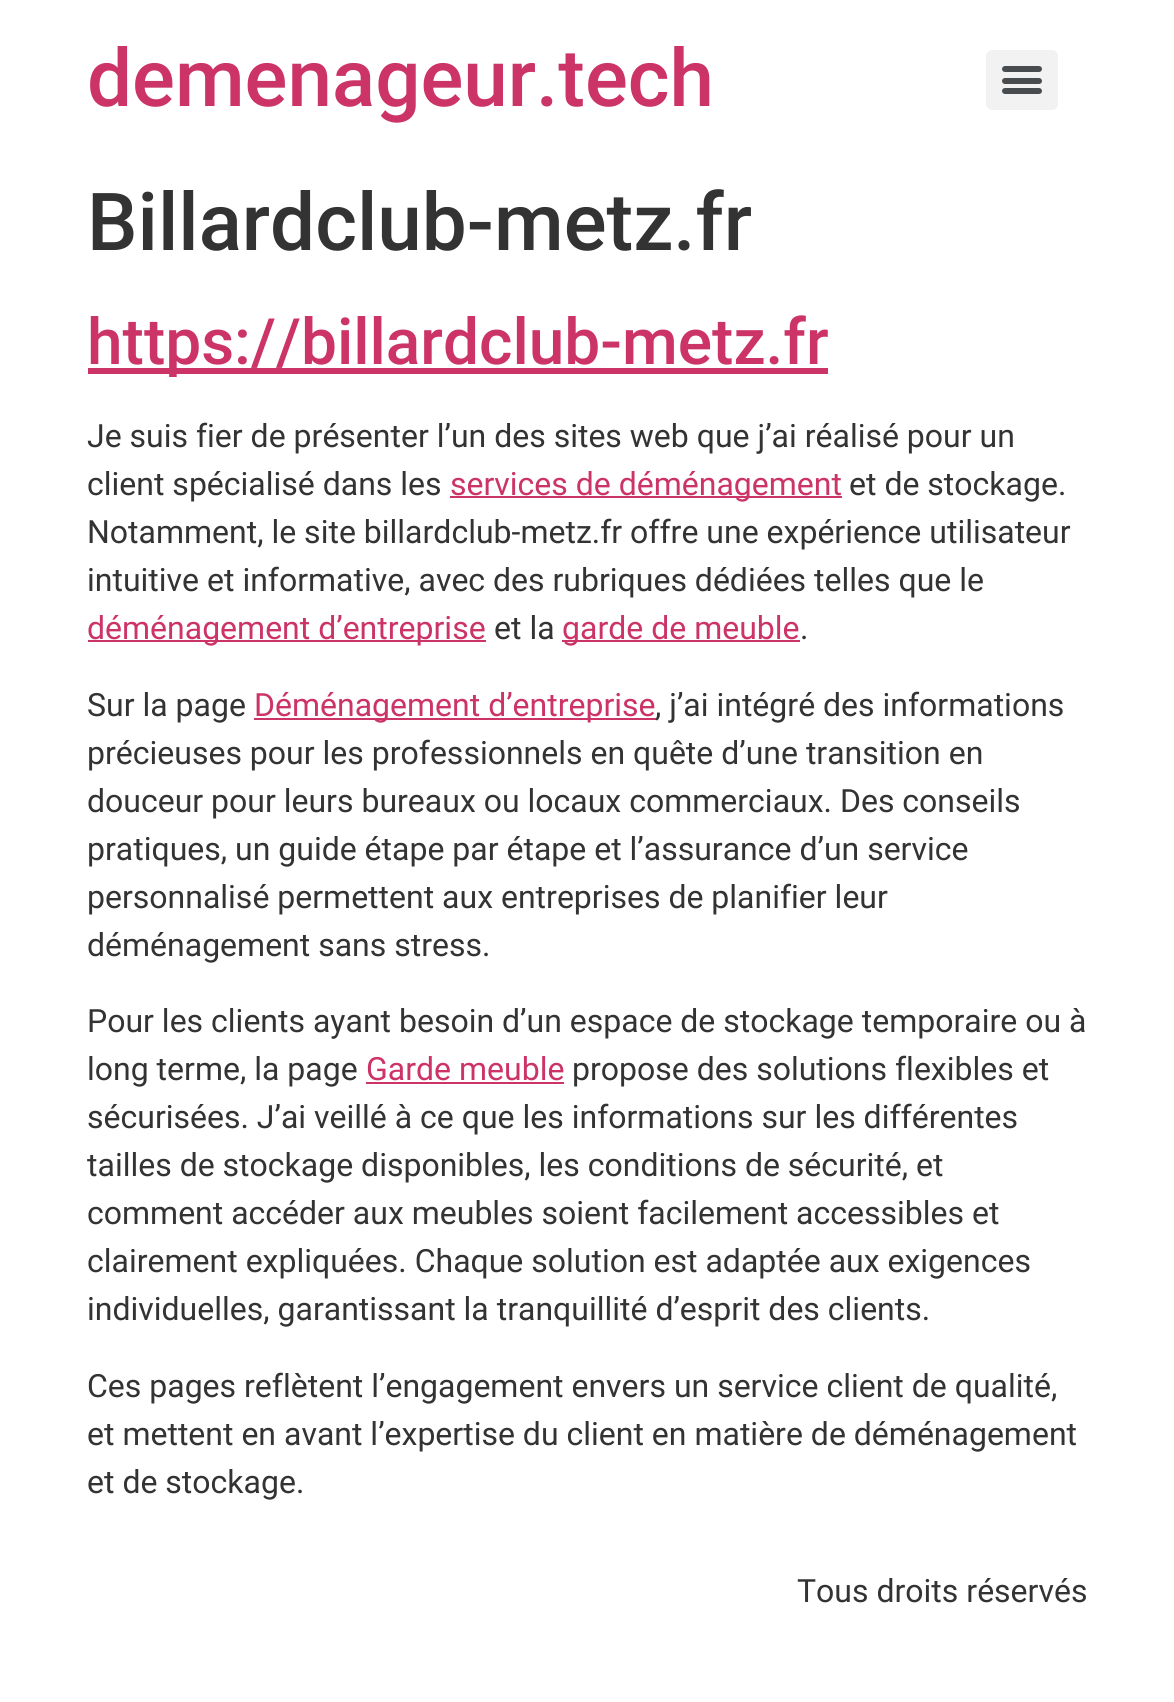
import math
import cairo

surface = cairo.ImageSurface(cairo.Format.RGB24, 1174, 1702)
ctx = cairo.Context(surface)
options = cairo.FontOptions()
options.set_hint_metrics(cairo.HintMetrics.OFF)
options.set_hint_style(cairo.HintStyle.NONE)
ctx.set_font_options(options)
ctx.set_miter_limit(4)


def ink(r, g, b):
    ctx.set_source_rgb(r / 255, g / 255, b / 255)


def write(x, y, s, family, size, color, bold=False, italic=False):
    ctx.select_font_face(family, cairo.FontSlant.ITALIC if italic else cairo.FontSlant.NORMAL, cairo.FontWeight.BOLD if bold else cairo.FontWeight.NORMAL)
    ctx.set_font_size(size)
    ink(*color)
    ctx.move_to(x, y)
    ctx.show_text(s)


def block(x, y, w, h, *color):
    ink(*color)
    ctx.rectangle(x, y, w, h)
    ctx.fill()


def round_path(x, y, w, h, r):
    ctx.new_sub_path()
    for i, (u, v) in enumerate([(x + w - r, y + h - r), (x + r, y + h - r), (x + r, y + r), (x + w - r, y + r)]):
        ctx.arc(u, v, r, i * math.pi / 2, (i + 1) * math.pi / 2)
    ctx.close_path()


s1 = dict(family="Roboto Medium", size=80, color=(204, 51, 102))
s2 = dict(family="Roboto Medium", size=80, color=(51, 51, 51))
s3 = dict(family="Roboto Medium", size=64, color=(204, 51, 102))
s4 = dict(family="Roboto", size=32, color=(51, 51, 51))
s5 = dict(family="Roboto", size=32, color=(204, 51, 102))

ink(255, 255, 255)
ctx.paint()
write(87, 106, "demenageur.tech", **s1)
ink(242, 242, 242)
round_path(986, 50, 72, 60, 6)
ctx.fill()
ink(73, 76, 79)
round_path(1002, 78, 40, 6, 3)
ctx.fill()
round_path(1002, 66, 40, 6, 3)
ctx.fill()
round_path(1002, 88, 40, 6, 3)
ctx.fill()
write(87, 250, "Billardclub-metz.fr", **s2)
block(88, 368, 740, 6, 204, 51, 102)
write(87, 364, "https://billardclub-metz.fr", **s3)
write(87, 447, "Je suis fier de présenter l’un des sites web que j’ai réalisé pour un", **s4)
write(87, 495, "client spécialisé dans les", **s4)
block(450, 496, 392, 2, 204, 51, 102)
write(450, 495, "services de déménagement", **s5)
write(849, 495, "et de stockage.", **s4)
write(87, 543, "Notamment, le site billardclub-metz.fr offre une expérience utilisateur", **s4)
write(87, 591, "intuitive et informative, avec des rubriques dédiées telles que le", **s4)
block(88, 640, 398, 2, 204, 51, 102)
write(87, 639, "déménagement d’entreprise", **s5)
write(494, 639, "et la", **s4)
block(562, 640, 238, 2, 204, 51, 102)
write(562, 639, "garde de meuble", **s5)
write(800, 639, ".", **s4)
write(87, 716, "Sur la page", **s4)
block(254, 718, 402, 2, 204, 51, 102)
write(254, 716, "Déménagement d’entreprise", **s5)
write(655, 716, ", j’ai intégré des informations", **s4)
write(87, 764, "précieuses pour les professionnels en quête d’une transition en", **s4)
write(87, 812, "douceur pour leurs bureaux ou locaux commerciaux. Des conseils", **s4)
write(87, 860, "pratiques, un guide étape par étape et l’assurance d’un service", **s4)
write(87, 908, "personnalisé permettent aux entreprises de planifier leur", **s4)
write(87, 956, "déménagement sans stress.", **s4)
write(87, 1032, "Pour les clients ayant besoin d’un espace de stockage temporaire ou à", **s4)
write(87, 1080, "long terme, la page", **s4)
write(366, 1080, "Garde meuble", **s5)
block(366, 1082, 198, 2, 204, 51, 102)
write(572, 1080, "propose des solutions flexibles et", **s4)
write(87, 1128, "sécurisées. J’ai veillé à ce que les informations sur les différentes", **s4)
write(87, 1176, "tailles de stockage disponibles, les conditions de sécurité, et", **s4)
write(87, 1224, "comment accéder aux meubles soient facilement accessibles et", **s4)
write(87, 1272, "clairement expliquées. Chaque solution est adaptée aux exigences", **s4)
write(87, 1320, "individuelles, garantissant la tranquillité d’esprit des clients.", **s4)
write(87, 1397, "Ces pages reflètent l’engagement envers un service client de qualité,", **s4)
write(87, 1445, "et mettent en avant l’expertise du client en matière de déménagement", **s4)
write(87, 1493, "et de stockage.", **s4)
write(797, 1602, "Tous droits réservés", **s4)
surface.write_to_png("screenshot.png")
